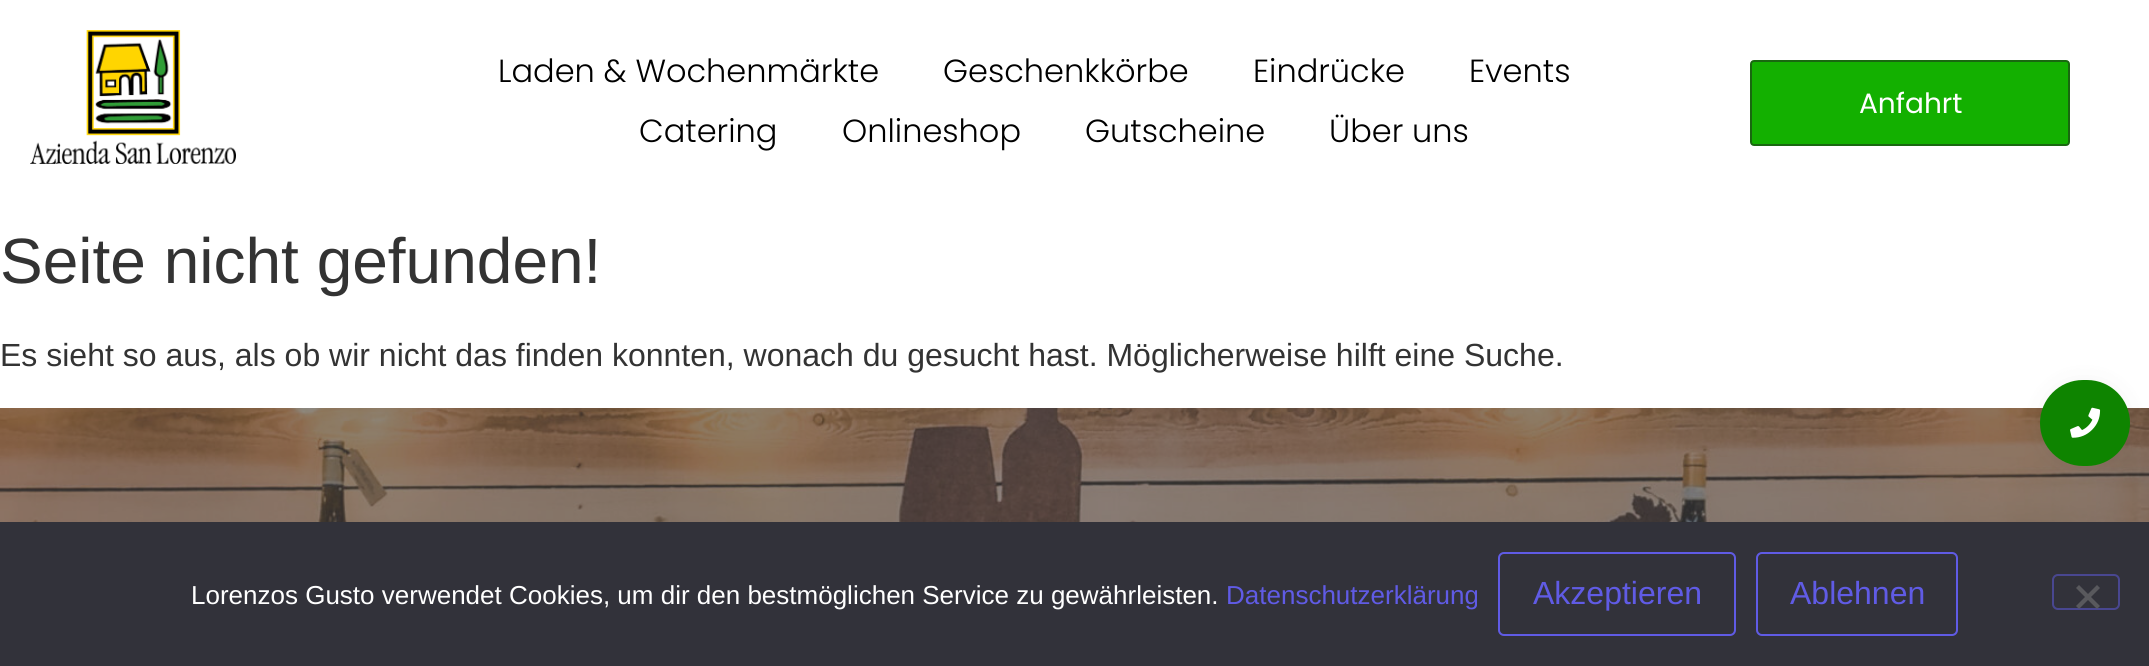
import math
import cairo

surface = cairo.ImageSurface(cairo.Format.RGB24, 2149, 666)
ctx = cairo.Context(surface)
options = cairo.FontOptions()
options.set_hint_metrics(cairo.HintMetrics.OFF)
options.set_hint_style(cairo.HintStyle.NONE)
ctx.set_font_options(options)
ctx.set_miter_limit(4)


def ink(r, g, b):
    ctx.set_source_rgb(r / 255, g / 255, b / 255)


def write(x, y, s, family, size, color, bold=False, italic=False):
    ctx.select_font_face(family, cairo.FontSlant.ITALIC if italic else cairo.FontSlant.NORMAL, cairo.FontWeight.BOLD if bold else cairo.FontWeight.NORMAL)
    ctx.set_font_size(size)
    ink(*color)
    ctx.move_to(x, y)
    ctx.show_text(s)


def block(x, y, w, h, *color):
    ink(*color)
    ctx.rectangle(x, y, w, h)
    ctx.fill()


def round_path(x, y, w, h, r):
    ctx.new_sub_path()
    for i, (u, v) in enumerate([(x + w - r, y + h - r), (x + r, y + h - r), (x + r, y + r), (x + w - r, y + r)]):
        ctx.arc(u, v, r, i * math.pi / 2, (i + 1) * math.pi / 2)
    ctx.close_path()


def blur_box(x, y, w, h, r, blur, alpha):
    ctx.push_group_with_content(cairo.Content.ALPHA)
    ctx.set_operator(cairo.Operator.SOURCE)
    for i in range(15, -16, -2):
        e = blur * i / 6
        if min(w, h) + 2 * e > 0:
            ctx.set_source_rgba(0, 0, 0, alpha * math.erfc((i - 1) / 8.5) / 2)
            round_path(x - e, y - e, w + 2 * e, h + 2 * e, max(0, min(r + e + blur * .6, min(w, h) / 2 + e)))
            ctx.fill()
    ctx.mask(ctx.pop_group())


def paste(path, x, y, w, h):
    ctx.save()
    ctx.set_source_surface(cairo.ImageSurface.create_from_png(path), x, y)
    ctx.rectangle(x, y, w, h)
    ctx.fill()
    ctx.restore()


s1 = dict(family="Poppins Light", size=32, color=(0, 0, 0))
s2 = dict(family="Poppins", size=28, color=(255, 255, 255))
s3 = dict(family="Liberation Sans", size=64, color=(51, 51, 51))
s4 = dict(family="Liberation Sans", size=32, color=(51, 51, 51))
s5 = dict(family="Liberation Sans", size=26, color=(255, 255, 255))
s6 = dict(family="Liberation Sans", size=26, color=(96, 91, 229))
s7 = dict(family="Liberation Sans", size=32, color=(96, 91, 229))

ink(255, 255, 255)
ctx.paint()
paste("pic1.png", 30, 30, 206, 134)
write(498, 82, "Laden & Wochenmärkte", **s1)
write(943, 82, "Geschenkkörbe", **s1)
write(1253, 82, "Eindrücke", **s1)
write(1469, 82, "Events", **s1)
write(639, 142, "Catering", **s1)
write(842, 142, "Onlineshop", **s1)
write(1085, 142, "Gutscheine", **s1)
write(1329, 142, "Über uns", **s1)
ink(19, 176, 0)
round_path(1751, 61, 318, 84, 3)
ctx.fill_preserve()
ink(25, 104, 16)
ctx.stroke()
write(1859, 113, "Anfahrt", **s2)
write(0, 283, "Seite nicht gefunden!", **s3)
write(0, 366, "Es sieht so aus, als ob wir nicht das finden konnten, wonach du gesucht hast. Möglicherweise hilft eine Suche.", **s4)
paste("pic3.png", 0, 408, 2149, 114)
ink(60, 60, 60)
blur_box(2040, 380, 90, 86, 43, 10, 0.06)
ink(14, 132, 0)
round_path(2040, 380, 90, 86, 43)
ctx.fill()
paste("pic2.png", 2070, 407, 31, 31)
block(0, 522, 2149, 144, 50, 50, 58)
write(191, 604, "Lorenzos Gusto verwendet Cookies, um dir den bestmöglichen Service zu gewährleisten.", **s5)
write(1226, 604, "Datenschutzerklärung", **s6)
round_path(1499, 553, 236, 82, 5)
ctx.stroke()
write(1533, 604, "Akzeptieren", **s7)
round_path(1757, 553, 200, 82, 5)
ctx.stroke()
write(1790, 604, "Ablehnen", **s7)
round_path(2053, 575, 66, 34, 5)
ink(73, 71, 144)
ctx.stroke()
ink(89, 89, 93)
ctx.new_path()
ctx.move_to(2097, 585)
ctx.line_to(2100, 588)
ctx.line_to(2079, 609)
ctx.line_to(2076, 606)
ctx.close_path()
ctx.fill()
ctx.new_path()
ctx.move_to(2076, 588)
ctx.line_to(2079, 585)
ctx.line_to(2100, 606)
ctx.line_to(2097, 609)
ctx.close_path()
ctx.fill()
surface.write_to_png("screenshot.png")
